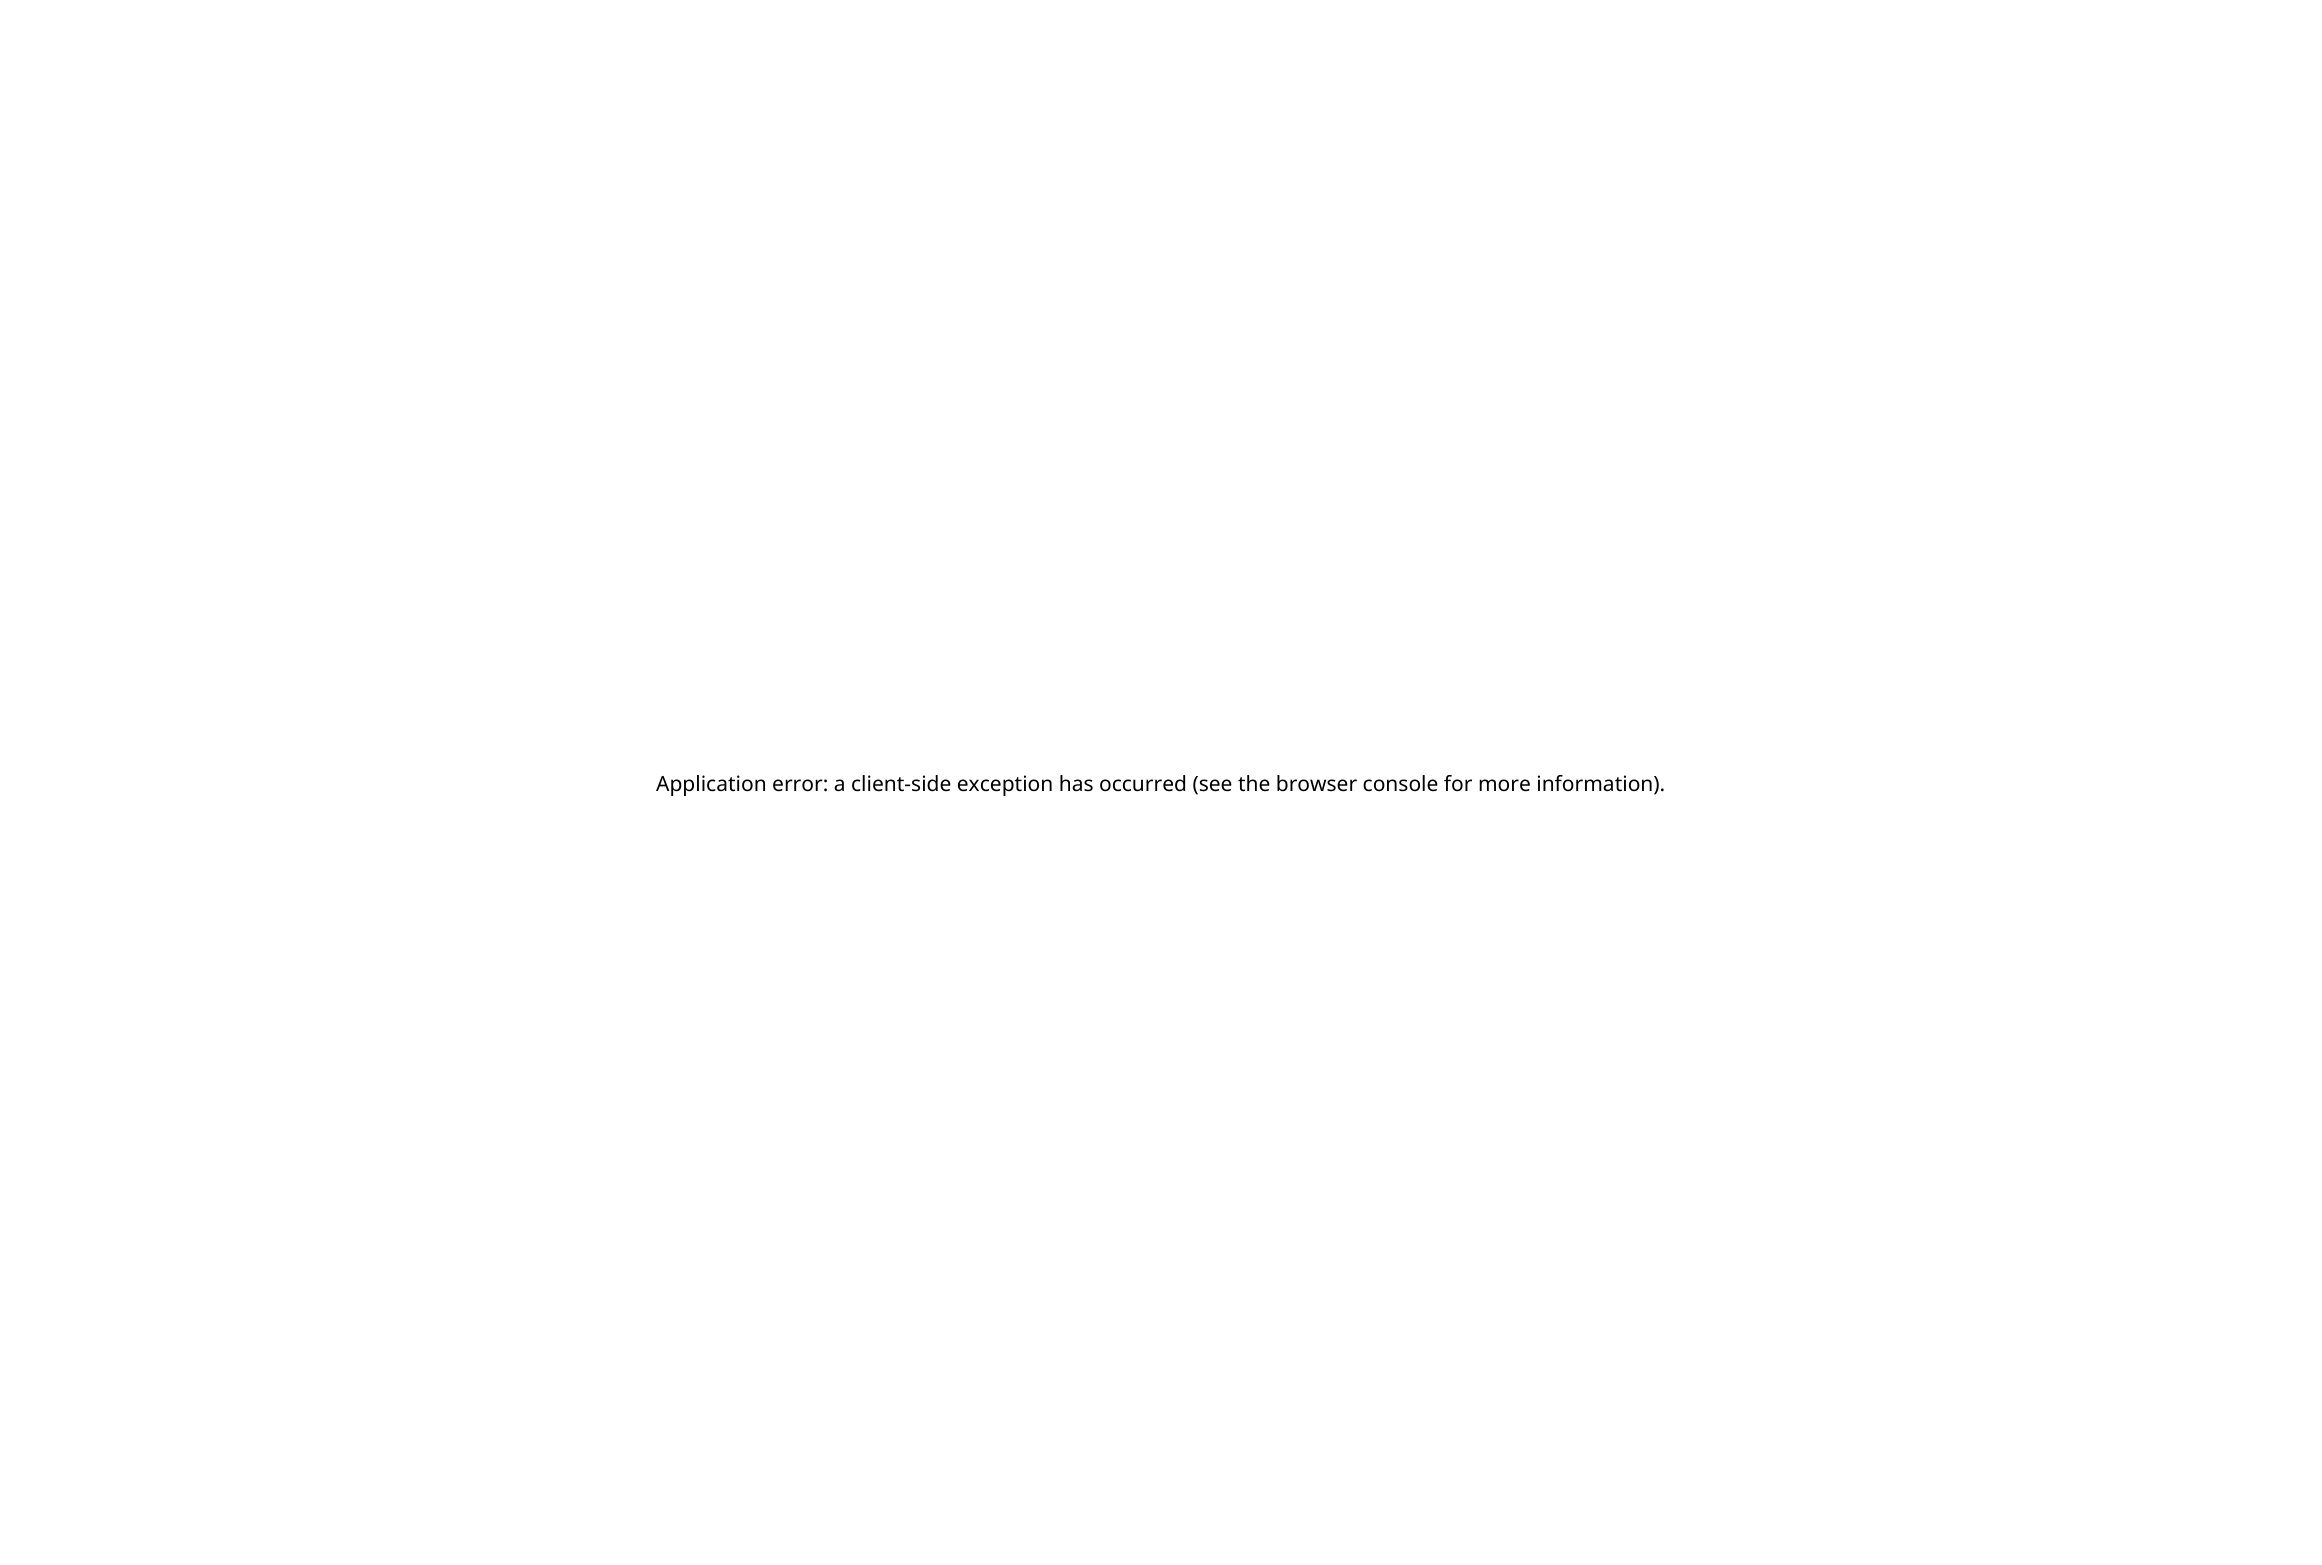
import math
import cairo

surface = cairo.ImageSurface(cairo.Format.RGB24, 2322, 1565)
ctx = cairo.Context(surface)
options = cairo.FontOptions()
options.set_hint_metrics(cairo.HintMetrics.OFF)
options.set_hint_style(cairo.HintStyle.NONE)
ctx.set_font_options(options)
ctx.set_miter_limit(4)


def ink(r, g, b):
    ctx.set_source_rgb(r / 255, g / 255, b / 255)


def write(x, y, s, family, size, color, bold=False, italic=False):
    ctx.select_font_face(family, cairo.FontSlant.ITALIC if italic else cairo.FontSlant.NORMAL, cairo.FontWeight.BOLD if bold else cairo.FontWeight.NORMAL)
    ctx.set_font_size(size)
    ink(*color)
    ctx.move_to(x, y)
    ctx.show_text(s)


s1 = dict(family="Noto Sans", size=21, color=(0, 0, 0))

ink(255, 255, 255)
ctx.paint()
write(656, 791, "Application error: a client-side exception has occurred (see the browser console for more information).", **s1)
surface.write_to_png("screenshot.png")
